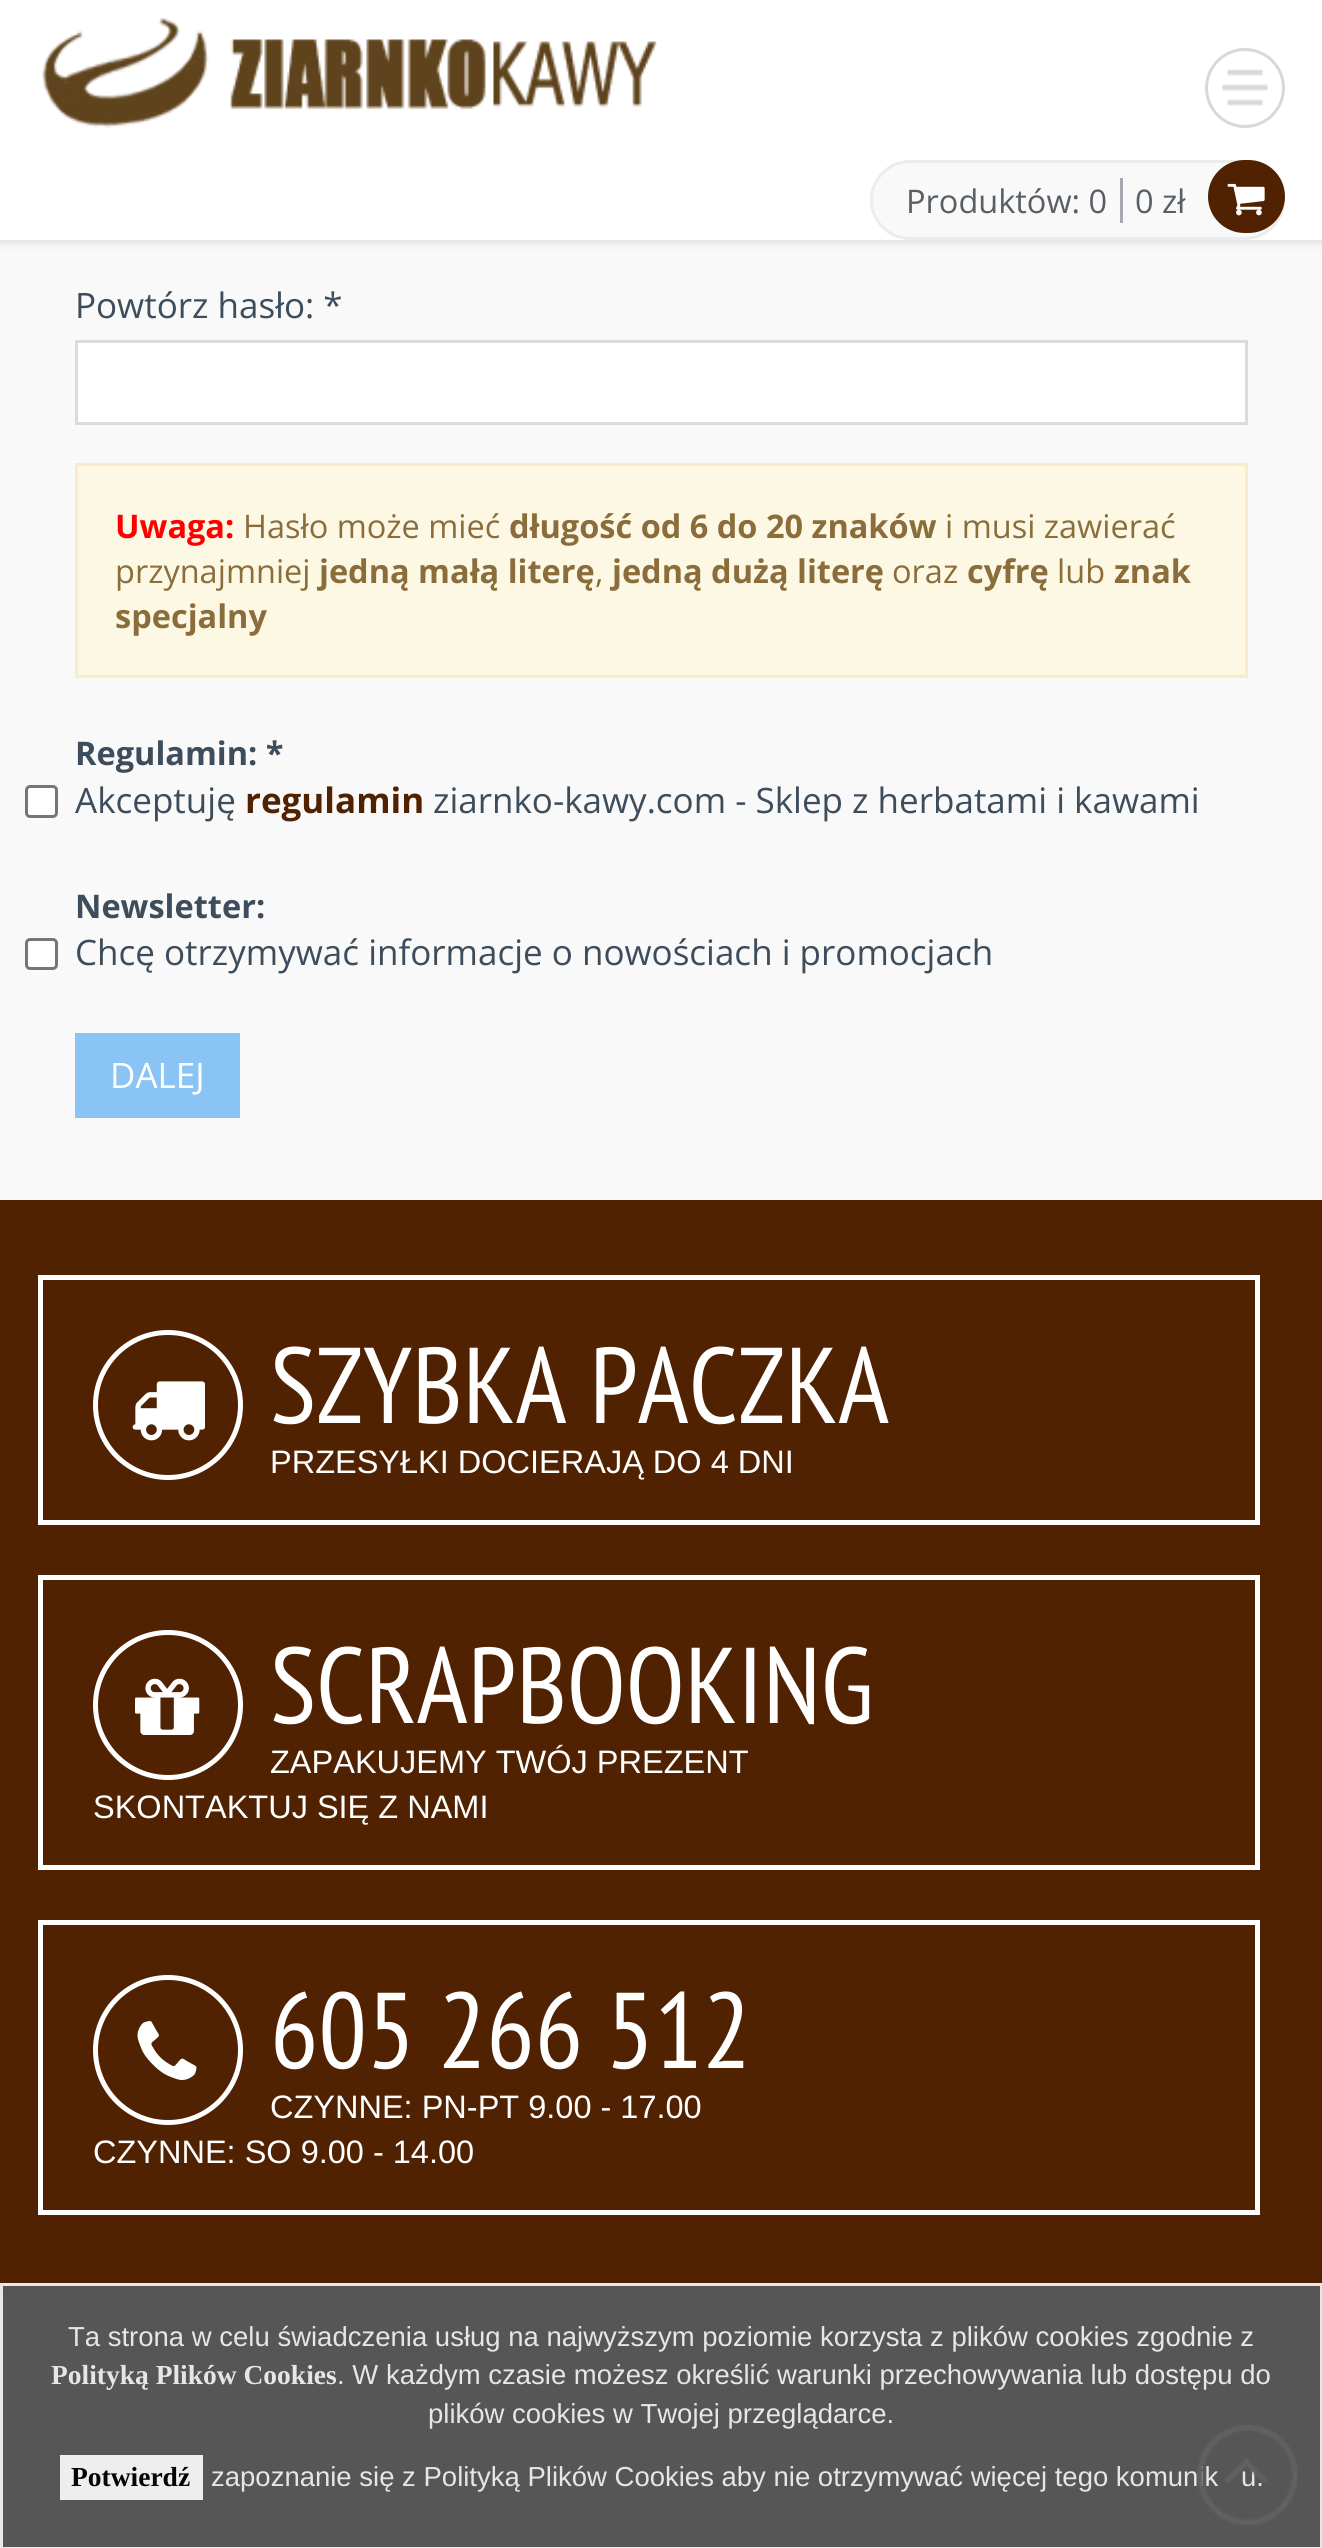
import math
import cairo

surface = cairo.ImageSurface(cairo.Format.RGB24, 1322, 2548)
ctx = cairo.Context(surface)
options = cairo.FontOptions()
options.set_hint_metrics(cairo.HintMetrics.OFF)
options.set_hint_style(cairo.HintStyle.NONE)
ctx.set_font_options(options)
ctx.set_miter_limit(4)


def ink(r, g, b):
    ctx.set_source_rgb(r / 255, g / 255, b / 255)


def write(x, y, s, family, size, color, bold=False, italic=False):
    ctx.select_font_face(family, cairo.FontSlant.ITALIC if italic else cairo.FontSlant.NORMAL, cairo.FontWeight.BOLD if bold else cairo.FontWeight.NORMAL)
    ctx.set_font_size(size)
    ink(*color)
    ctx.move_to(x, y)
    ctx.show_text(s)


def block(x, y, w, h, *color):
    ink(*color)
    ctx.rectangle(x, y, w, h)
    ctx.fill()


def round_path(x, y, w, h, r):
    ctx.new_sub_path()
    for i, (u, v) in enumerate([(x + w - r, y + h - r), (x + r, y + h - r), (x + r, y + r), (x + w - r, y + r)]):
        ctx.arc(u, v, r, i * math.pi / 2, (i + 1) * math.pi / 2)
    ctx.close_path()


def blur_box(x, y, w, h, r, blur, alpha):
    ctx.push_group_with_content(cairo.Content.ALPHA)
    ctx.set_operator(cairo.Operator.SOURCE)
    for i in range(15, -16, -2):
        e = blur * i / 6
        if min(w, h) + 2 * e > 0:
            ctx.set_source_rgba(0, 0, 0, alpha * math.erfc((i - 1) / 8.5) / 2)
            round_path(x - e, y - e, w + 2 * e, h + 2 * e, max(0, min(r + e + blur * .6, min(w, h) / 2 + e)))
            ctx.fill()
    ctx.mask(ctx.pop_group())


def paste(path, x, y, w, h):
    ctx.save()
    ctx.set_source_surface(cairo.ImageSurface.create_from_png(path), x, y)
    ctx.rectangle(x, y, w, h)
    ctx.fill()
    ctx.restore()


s1 = dict(family="Open Sans", size=32.5, color=(89, 95, 101))
s2 = dict(family="Open Sans", size=35, color=(62, 77, 92))
s3 = dict(family="Open Sans", size=32.5, color=(255, 0, 0), bold=True)
s4 = dict(family="Open Sans", size=32.5, color=(138, 109, 59))
s5 = dict(family="Open Sans", size=32.5, color=(138, 109, 59), bold=True)
s6 = dict(family="Open Sans", size=32.5, color=(62, 77, 92), bold=True)
s7 = dict(family="Open Sans", size=35, color=(80, 34, 1), bold=True)
s8 = dict(family="Open Sans", size=35, color=(255, 255, 255))
s9 = dict(family="PT Sans Narrow", size=107.5, color=(255, 255, 255))
s10 = dict(family="Liberation Sans", size=32.5, color=(255, 255, 255))
s11 = dict(family="Liberation Sans", size=27.5, color=(230, 230, 230))
s12 = dict(family="Liberation Serif", size=27.5, color=(230, 230, 230), bold=True)
s13 = dict(family="Liberation Serif", size=27.5, color=(5, 5, 5), bold=True)

ink(249, 249, 249)
ctx.paint()
ink(221, 221, 221)
blur_box(0, 3, 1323, 240, 0, 4, 1)
block(0, 0, 1322, 240, 255, 255, 255)
paste("pic1.png", 41, 18, 616, 110)
paste("pic2.png", 1222, 69, 46, 37)
ctx.arc(1245, 88, 38.5, 0, 2 * math.pi)
ink(216, 216, 216)
ctx.set_line_width(3)
ctx.stroke()
ink(249, 249, 249)
round_path(871.5, 161.5, 412, 77, 38.5)
ctx.fill_preserve()
ink(236, 236, 236)
ctx.stroke()
write(906, 213, "Produktów: 0", **s1)
write(1135, 213, "0 zł", **s1)
block(1120, 178, 3, 45, 165, 170, 176)
ink(80, 34, 1)
round_path(1208, 160, 77, 73, 36.5)
ctx.fill()
paste("pic3.png", 1227, 183, 38, 33)
write(75, 318, "Powtórz hasło: *", **s2)
ink(255, 255, 255)
ctx.rectangle(76.5, 341.5, 1170, 82)
ctx.fill_preserve()
ink(219, 219, 219)
ctx.stroke()
ink(252, 248, 227)
ctx.rectangle(76.5, 464.5, 1170, 212)
ctx.fill_preserve()
ink(250, 235, 204)
ctx.stroke()
write(115, 538, "Uwaga:", **s3)
write(243, 538, "Hasło może mieć", **s4)
write(509, 538, "długość od 6 do 20 znaków", **s5)
write(945, 538, "i musi zawierać", **s4)
write(115, 583, "przynajmniej", **s4)
write(319, 583, "jedną małą literę", **s5)
write(595, 583, ",", **s4)
write(612, 583, "jedną dużą literę", **s5)
write(892, 583, "oraz", **s4)
write(967, 583, "cyfrę", **s5)
write(1057, 583, "lub", **s4)
write(1114, 583, "znak", **s5)
write(115, 628, "specjalny", **s5)
write(75, 765, "Regulamin: *", **s6)
ink(255, 255, 255)
round_path(26.5, 786.5, 30, 30, 3.5)
ctx.fill_preserve()
ink(118, 118, 118)
ctx.stroke()
write(75, 813, "Akceptuję", **s2)
write(245, 813, "regulamin", **s7)
write(433, 813, "ziarnko-kawy.com - Sklep z herbatami i kawami", **s2)
write(75, 918, "Newsletter:", **s6)
ink(255, 255, 255)
round_path(26.5, 939.5, 30, 29, 3.5)
ctx.fill_preserve()
ink(118, 118, 118)
ctx.stroke()
write(75, 965, "Chcę otrzymywać informacje o nowościach i promocjach", **s2)
block(75, 1033, 165, 85, 137, 196, 244)
write(110, 1088, "DALEJ", **s8)
block(0, 1200, 1322, 1083, 80, 34, 1)
block(0, 2283, 1322, 7, 90, 84, 81)
ctx.rectangle(40.5, 1277.5, 1217, 245)
ink(255, 255, 255)
ctx.set_line_width(5)
ctx.stroke()
ctx.arc(168, 1405, 72.5, 0, 2 * math.pi)
ctx.stroke()
paste("pic4.png", 132, 1381, 73, 60)
write(270, 1423, "SZYBKA PACZKA", **s9)
write(270, 1473, "PRZESYŁKI DOCIERAJĄ DO 4 DNI", **s10)
ctx.rectangle(40.5, 1577.5, 1217, 290)
ctx.stroke()
ctx.arc(168, 1705, 72.5, 0, 2 * math.pi)
ctx.stroke()
paste("pic5.png", 135, 1678, 65, 57)
write(270, 1723, "SCRAPBOOKING", **s9)
write(270, 1773, "ZAPAKUJEMY TWÓJ PREZENT", **s10)
write(93, 1818, "SKONTAKTUJ SIĘ Z NAMI", **s10)
ctx.rectangle(40.5, 1922.5, 1217, 290)
ctx.stroke()
ctx.arc(168, 2050, 72.5, 0, 2 * math.pi)
ctx.stroke()
paste("pic6.png", 137, 2021, 60, 59)
write(270, 2068, "605 266 512", **s9)
write(270, 2118, "CZYNNE: PN-PT 9.00 - 17.00", **s10)
write(93, 2163, "CZYNNE: SO 9.00 - 14.00", **s10)
block(0, 2290, 1322, 258, 87, 86, 86)
ctx.rectangle(1.5, 2284.5, 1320, 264)
ctx.set_source_rgba(0.98, 0.98, 0.98, 0.9)
ctx.set_line_width(3)
ctx.stroke()
write(68, 2346, "Ta strona w celu świadczenia usług na najwyższym poziomie korzysta z plików cookies zgodnie z", **s11)
write(51, 2384, "Polityką Plików Cookies", **s12)
write(337, 2384, ". W każdym czasie możesz określić warunki przechowywania lub dostępu do", **s11)
write(428, 2423, "plików cookies w Twojej przeglądarce.", **s11)
ctx.set_source_rgba(1, 1, 1, 0.9)
ctx.rectangle(60, 2455, 143, 45)
ctx.fill()
write(71, 2486, "Potwierdź", **s13)
write(211, 2486, "zapoznanie się z Polityką Plików Cookies aby nie otrzymywać więcej tego komunik", **s11)
write(1241, 2486, "u.", **s11)
paste("pic7.png", 1197, 2425, 101, 100)
surface.write_to_png("screenshot.png")
